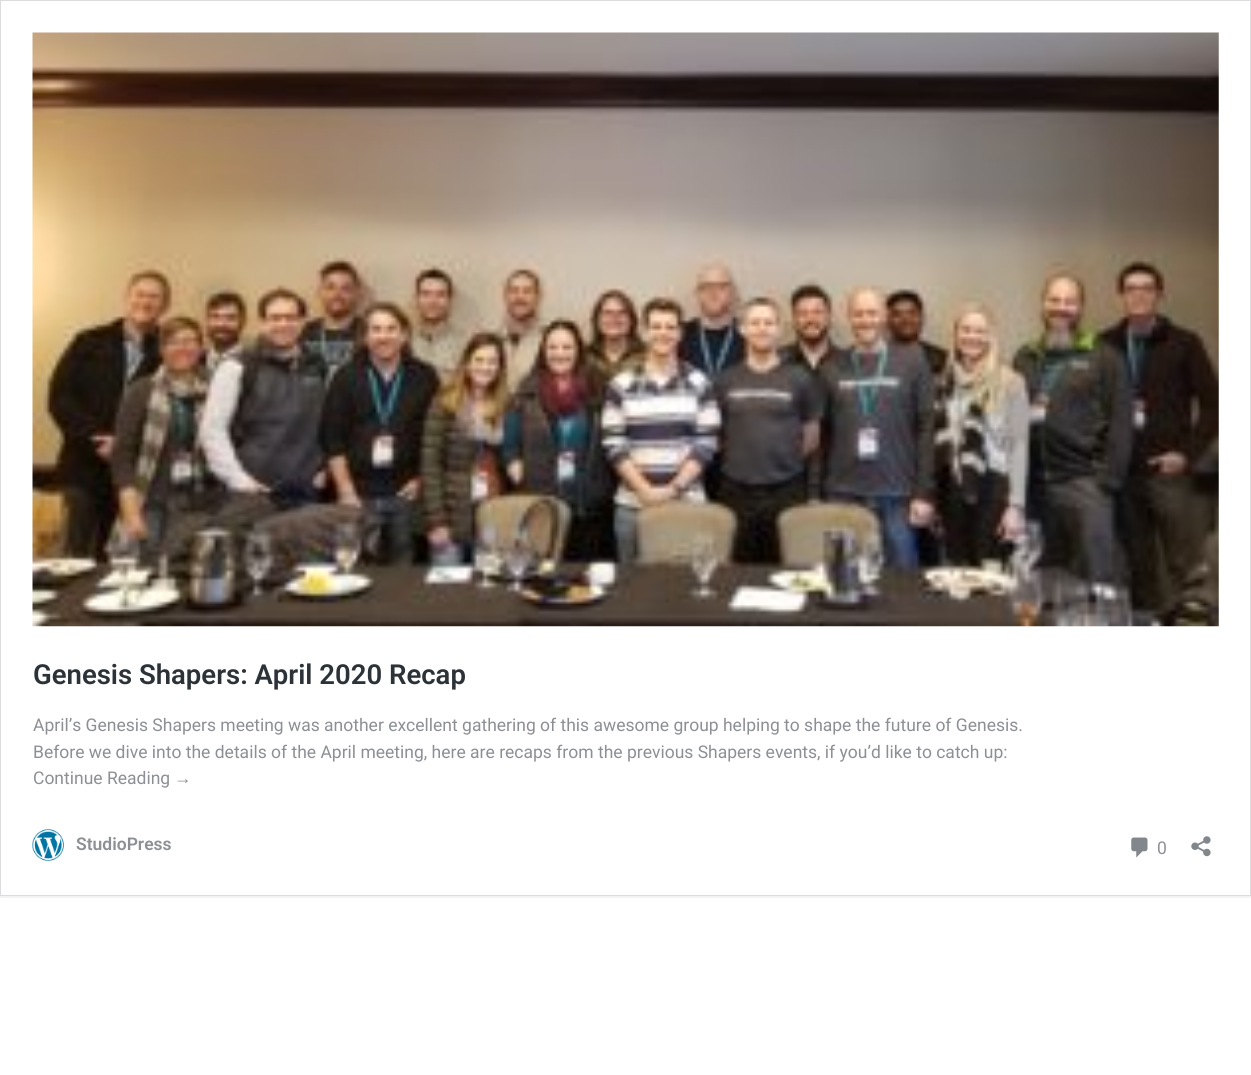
import math
import cairo

surface = cairo.ImageSurface(cairo.Format.RGB24, 1251, 1075)
ctx = cairo.Context(surface)
options = cairo.FontOptions()
options.set_hint_metrics(cairo.HintMetrics.OFF)
options.set_hint_style(cairo.HintStyle.NONE)
ctx.set_font_options(options)
ctx.set_miter_limit(4)


def ink(r, g, b):
    ctx.set_source_rgb(r / 255, g / 255, b / 255)


def write(x, y, s, family, size, color, bold=False, italic=False):
    ctx.select_font_face(family, cairo.FontSlant.ITALIC if italic else cairo.FontSlant.NORMAL, cairo.FontWeight.BOLD if bold else cairo.FontWeight.NORMAL)
    ctx.set_font_size(size)
    ink(*color)
    ctx.move_to(x, y)
    ctx.show_text(s)


def round_path(x, y, w, h, r):
    ctx.new_sub_path()
    for i, (u, v) in enumerate([(x + w - r, y + h - r), (x + r, y + h - r), (x + r, y + r), (x + w - r, y + r)]):
        ctx.arc(u, v, r, i * math.pi / 2, (i + 1) * math.pi / 2)
    ctx.close_path()


def blur_box(x, y, w, h, r, blur, alpha):
    ctx.push_group_with_content(cairo.Content.ALPHA)
    ctx.set_operator(cairo.Operator.SOURCE)
    for i in range(15, -16, -2):
        e = blur * i / 6
        if min(w, h) + 2 * e > 0:
            ctx.set_source_rgba(0, 0, 0, alpha * math.erfc((i - 1) / 8.5) / 2)
            round_path(x - e, y - e, w + 2 * e, h + 2 * e, max(0, min(r + e + blur * .6, min(w, h) / 2 + e)))
            ctx.fill()
    ctx.mask(ctx.pop_group())


def paste(path, x, y, w, h):
    ctx.save()
    ctx.set_source_surface(cairo.ImageSurface.create_from_png(path), x, y)
    ctx.rectangle(x, y, w, h)
    ctx.fill()
    ctx.restore()


s1 = dict(family="Roboto SemiBold", size=27.5, color=(44, 51, 56))
s2 = dict(family="Roboto", size=17.5, color=(140, 143, 148))
s3 = dict(family="Liberation Sans", size=17.5, color=(140, 143, 148))
s4 = dict(family="Roboto SemiBold", size=17.5, color=(140, 143, 148))

ink(255, 255, 255)
ctx.paint()
ctx.save()
ctx.rectangle(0, 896, 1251, 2)
ctx.clip()
ink(0, 0, 0)
blur_box(0, 1, 1251, 897, 0, 0.5, 0.05)
ctx.restore()
ctx.rectangle(0.5, 0.5, 1250, 895)
ink(220, 220, 222)
ctx.set_line_width(1)
ctx.stroke()
paste("pic1.png", 32, 32, 1187, 595)
write(33, 684, "Genesis Shapers: April 2020 Recap", **s1)
write(33, 731, "April’s Genesis Shapers meeting was another excellent gathering of this awesome group helping to shape the future of Genesis.", **s2)
write(33, 758, "Before we dive into the details of the April meeting, here are recaps from the previous Shapers events, if you’d like to catch up:", **s2)
write(33, 784, "Continue Reading", **s2)
write(174, 784, "→", **s3)
paste("pic2.png", 32, 829, 32, 32)
write(76, 850, "StudioPress", **s4)
paste("pic3.png", 1131, 837, 17, 21)
write(1157, 854, "0", **s2)
paste("pic4.png", 1191, 836, 20, 21)
surface.write_to_png("screenshot.png")
